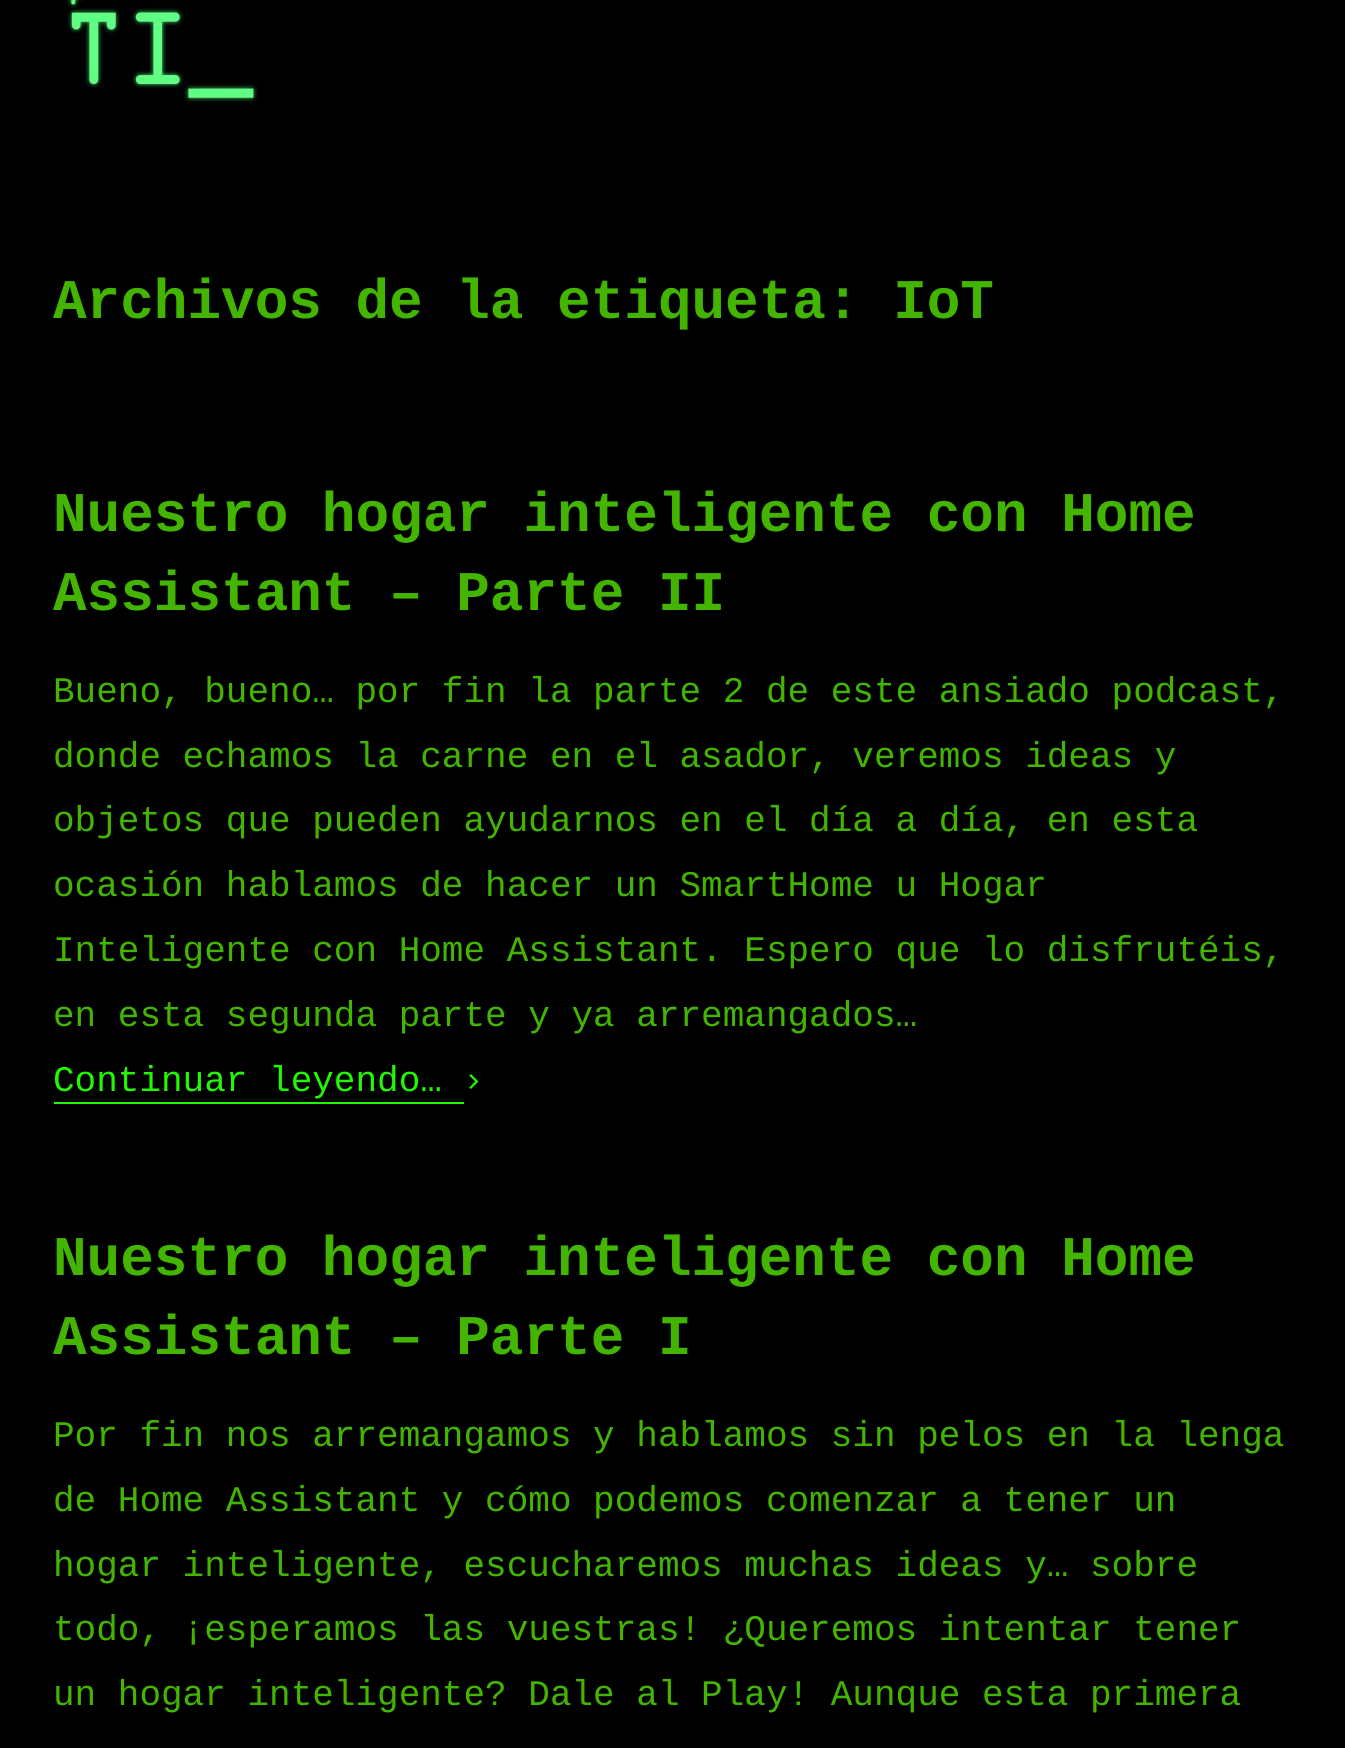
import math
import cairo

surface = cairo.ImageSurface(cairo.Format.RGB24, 1345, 1748)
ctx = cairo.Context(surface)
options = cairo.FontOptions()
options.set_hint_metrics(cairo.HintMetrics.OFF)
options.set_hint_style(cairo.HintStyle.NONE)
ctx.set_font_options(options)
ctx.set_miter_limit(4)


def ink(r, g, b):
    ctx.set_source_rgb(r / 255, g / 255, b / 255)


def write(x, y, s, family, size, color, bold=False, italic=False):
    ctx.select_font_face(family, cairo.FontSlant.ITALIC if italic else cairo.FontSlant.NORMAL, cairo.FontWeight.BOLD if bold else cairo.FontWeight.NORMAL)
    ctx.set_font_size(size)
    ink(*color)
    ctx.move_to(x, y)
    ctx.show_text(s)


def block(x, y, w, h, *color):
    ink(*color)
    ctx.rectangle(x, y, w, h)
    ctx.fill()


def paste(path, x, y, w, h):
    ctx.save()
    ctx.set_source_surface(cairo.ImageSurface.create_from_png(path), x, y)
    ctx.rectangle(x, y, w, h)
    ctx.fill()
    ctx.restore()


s1 = dict(family="Liberation Mono", size=56, color=(67, 181, 1), bold=True)
s2 = dict(family="Liberation Mono", size=36, color=(67, 181, 1))
s3 = dict(family="Liberation Mono", size=36, color=(34, 248, 1))

ink(0, 0, 0)
ctx.paint()
paste("pic1.png", 64, 0, 194, 112)
write(53, 318, "Archivos de la etiqueta: IoT", **s1)
write(53, 531, "Nuestro hogar inteligente con Home", **s1)
write(53, 610, "Assistant – Parte II", **s1)
write(53, 702, "Bueno, bueno… por fin la parte 2 de este ansiado podcast,", **s2)
write(53, 767, "donde echamos la carne en el asador, veremos ideas y", **s2)
write(53, 831, "objetos que pueden ayudarnos en el día a día, en esta", **s2)
write(53, 896, "ocasión hablamos de hacer un SmartHome u Hogar", **s2)
write(53, 961, "Inteligente con Home Assistant. Espero que lo disfrutéis,", **s2)
write(53, 1026, "en esta segunda parte y ya arremangados…", **s2)
write(53, 1091, "Continuar leyendo…", **s3)
block(54, 1102, 410, 2, 34, 248, 1)
paste("pic2.png", 469, 1074, 10, 15)
write(53, 1275, "Nuestro hogar inteligente con Home", **s1)
write(53, 1354, "Assistant – Parte I", **s1)
write(53, 1446, "Por fin nos arremangamos y hablamos sin pelos en la lenga", **s2)
write(53, 1511, "de Home Assistant y cómo podemos comenzar a tener un", **s2)
write(53, 1576, "hogar inteligente, escucharemos muchas ideas y… sobre", **s2)
write(53, 1640, "todo, ¡esperamos las vuestras! ¿Queremos intentar tener", **s2)
write(53, 1705, "un hogar inteligente? Dale al Play! Aunque esta primera", **s2)
surface.write_to_png("screenshot.png")
